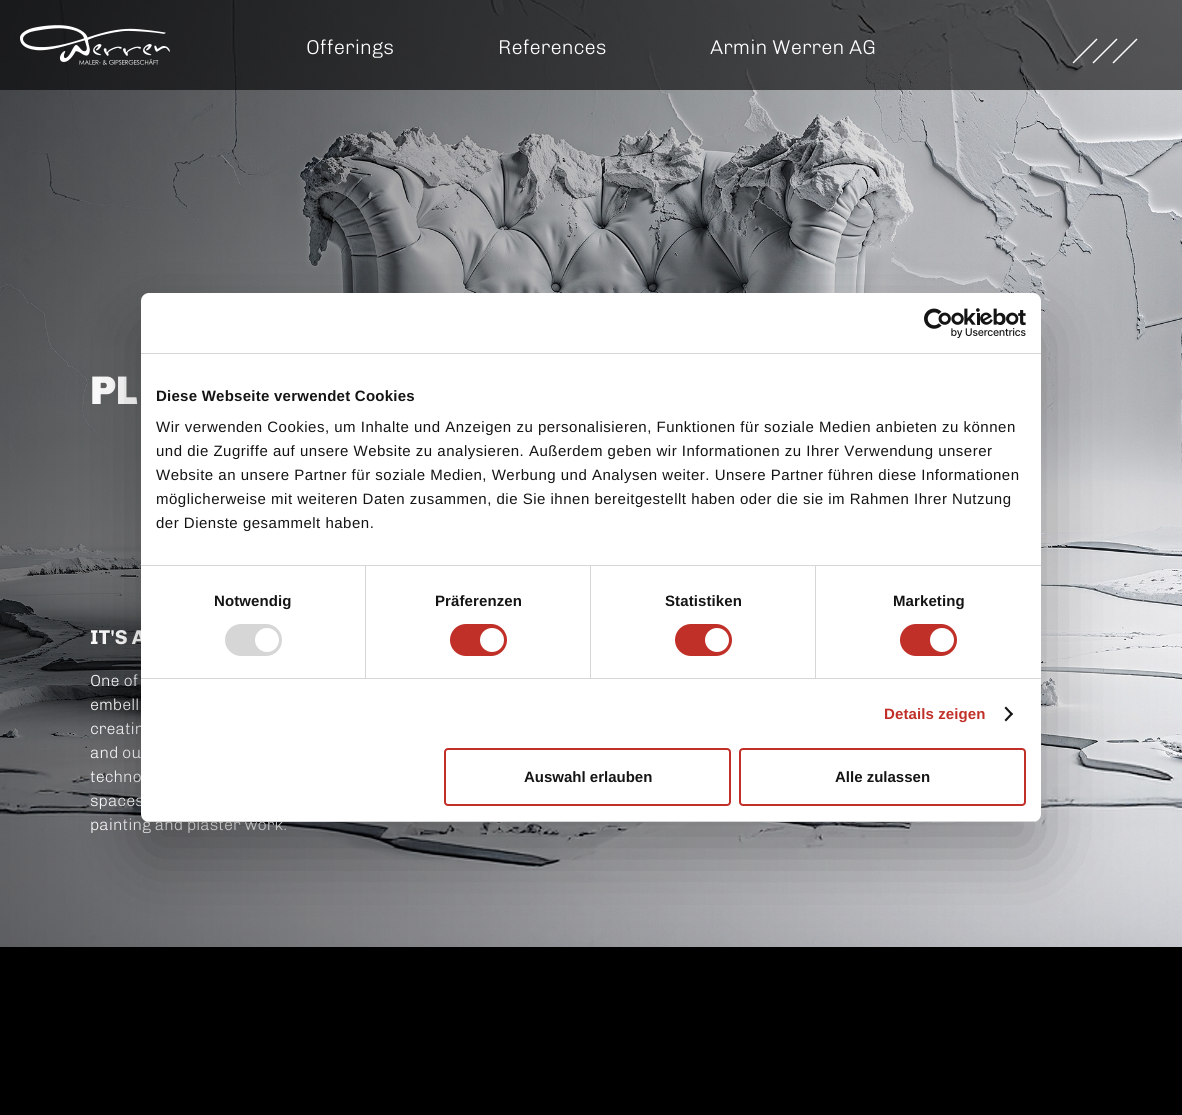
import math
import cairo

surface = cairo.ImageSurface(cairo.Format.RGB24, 1182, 1115)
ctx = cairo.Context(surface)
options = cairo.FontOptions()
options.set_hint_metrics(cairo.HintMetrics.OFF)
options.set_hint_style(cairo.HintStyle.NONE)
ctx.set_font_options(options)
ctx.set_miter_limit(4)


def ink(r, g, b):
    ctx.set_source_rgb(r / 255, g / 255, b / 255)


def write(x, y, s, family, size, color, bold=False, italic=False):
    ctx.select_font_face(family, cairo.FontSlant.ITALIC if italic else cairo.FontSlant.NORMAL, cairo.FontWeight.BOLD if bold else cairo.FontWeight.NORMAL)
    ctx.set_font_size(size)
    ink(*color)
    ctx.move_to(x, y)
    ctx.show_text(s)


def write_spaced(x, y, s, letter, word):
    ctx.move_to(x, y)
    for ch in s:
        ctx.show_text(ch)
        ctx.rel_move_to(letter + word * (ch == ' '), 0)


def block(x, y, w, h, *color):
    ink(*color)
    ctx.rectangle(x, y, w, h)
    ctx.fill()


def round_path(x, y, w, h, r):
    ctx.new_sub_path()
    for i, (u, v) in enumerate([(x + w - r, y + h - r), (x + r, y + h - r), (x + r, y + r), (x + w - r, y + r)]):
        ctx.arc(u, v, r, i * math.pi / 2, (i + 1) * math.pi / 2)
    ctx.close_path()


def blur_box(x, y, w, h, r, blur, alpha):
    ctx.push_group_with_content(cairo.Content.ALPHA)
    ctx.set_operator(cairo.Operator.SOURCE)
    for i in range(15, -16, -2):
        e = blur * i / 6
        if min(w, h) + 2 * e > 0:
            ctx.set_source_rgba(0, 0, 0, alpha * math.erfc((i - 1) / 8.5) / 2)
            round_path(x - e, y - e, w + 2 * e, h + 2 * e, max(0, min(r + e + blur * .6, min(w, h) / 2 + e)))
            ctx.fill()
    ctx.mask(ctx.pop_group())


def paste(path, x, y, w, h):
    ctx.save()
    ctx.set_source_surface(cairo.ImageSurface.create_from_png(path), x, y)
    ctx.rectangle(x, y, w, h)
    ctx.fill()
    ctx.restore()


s1 = dict(family="Chivo ExtraLight", size=20, color=(255, 255, 255))
s2 = dict(family="Chivo Black", size=40, color=(255, 255, 255))
s3 = dict(family="Chivo", size=20, color=(255, 255, 255), bold=True)
s4 = dict(family="Chivo ExtraLight", size=16, color=(255, 255, 255))
s5 = dict(family="Liberation Sans", size=15, color=(20, 20, 20), bold=True)

ink(255, 255, 255)
ctx.paint()
paste("pic2.png", 0, 0, 1182, 947)
ctx.set_source_rgba(0, 0, 0, 0.6)
ctx.rectangle(0, 0, 1182, 90)
ctx.fill()
paste("pic1.png", 20, 25, 150, 40)
write(306, 54, "Offerings", **s1)
write(498, 54, "References", **s1)
write(710, 54, "Armin Werren AG", **s1)
ctx.new_path()
ctx.move_to(1112.5, 62.5)
ctx.line_to(1136.5, 38.5)
ctx.line_to(1137.5, 39.5)
ctx.line_to(1113.5, 63.5)
ctx.close_path()
ctx.fill()
ctx.new_path()
ctx.move_to(1092.5, 62.5)
ctx.line_to(1116.5, 38.5)
ctx.line_to(1117.5, 39.5)
ctx.line_to(1093.5, 63.5)
ctx.close_path()
ctx.fill()
ctx.new_path()
ctx.move_to(1072.5, 62.5)
ctx.line_to(1096.5, 38.5)
ctx.line_to(1097.5, 39.5)
ctx.line_to(1073.5, 63.5)
ctx.close_path()
ctx.fill()
write(90, 404, "PL", **s2)
write(90, 644, "IT'S A", **s3)
write(90, 686, "One of", **s4)
write(90, 710, "embell", **s4)
write(90, 734, "creatin", **s4)
write(90, 758, "and ou", **s4)
write(90, 782, "techno", **s4)
write(90, 806, "spaces", **s4)
write(90, 830, "painting and plaster work.", **s4)
block(0, 947, 1182, 168, 0, 0, 0)
ink(0, 0, 0)
blur_box(141, 325, 900, 529, 8, 34, 0.3)
ink(255, 255, 255)
round_path(141, 293, 900, 529, 8)
ctx.fill()
block(141, 353, 900, 1, 214, 214, 214)
paste("pic3.png", 924, 308, 102, 30)
block(141, 565, 900, 1, 214, 214, 214)
ctx.select_font_face("Liberation Sans", cairo.FontSlant.NORMAL, cairo.FontWeight.BOLD)
ctx.set_font_size(15)
ink(20, 20, 20)
write_spaced(156, 401, "Diese Webseite verwendet Cookies", 0.25, 0)
ctx.select_font_face("Liberation Sans")
write_spaced(156, 432, "Wir verwenden Cookies, um Inhalte und Anzeigen zu personalisieren, Funktionen für soziale Medien anbieten zu können", 0.5, 0)
write_spaced(156, 456, "und die Zugriffe auf unsere Website zu analysieren. Außerdem geben wir Informationen zu Ihrer Verwendung unserer", 0.5, 0)
write_spaced(156, 480, "Website an unsere Partner für soziale Medien, Werbung und Analysen weiter. Unsere Partner führen diese Informationen", 0.5, 0)
write_spaced(156, 504, "möglicherweise mit weiteren Daten zusammen, die Sie ihnen bereitgestellt haben oder die sie im Rahmen Ihrer Nutzung", 0.5, 0)
write_spaced(156, 528, "der Dienste gesammelt haben.", 0.5, 0)
block(141, 678, 900, 1, 214, 214, 214)
block(365, 566, 1, 112, 214, 214, 214)
ctx.select_font_face("Liberation Sans", cairo.FontSlant.NORMAL, cairo.FontWeight.BOLD)
ink(20, 20, 20)
write_spaced(214, 606, "Notwendig", 0.1, 0)
ink(214, 214, 214)
round_path(225, 624, 57, 32, 16)
ctx.fill()
ink(255, 255, 255)
ctx.arc(267, 640, 12, 0, 2 * math.pi)
ctx.fill()
block(590, 566, 1, 112, 214, 214, 214)
ink(20, 20, 20)
write_spaced(435, 606, "Präferenzen", 0.1, 0)
ink(193, 48, 40)
round_path(450, 624, 57, 32, 16)
ctx.fill()
ink(255, 255, 255)
ctx.arc(492, 640, 12, 0, 2 * math.pi)
ctx.fill()
block(815, 566, 1, 112, 214, 214, 214)
ink(20, 20, 20)
write_spaced(665, 606, "Statistiken", 0.1, 0)
ink(193, 48, 40)
round_path(675, 624, 57, 32, 16)
ctx.fill()
ink(255, 255, 255)
ctx.arc(717, 640, 12, 0, 2 * math.pi)
ctx.fill()
ink(20, 20, 20)
write_spaced(893, 606, "Marketing", 0.1, 0)
ink(193, 48, 40)
round_path(900, 624, 57, 32, 16)
ctx.fill()
ink(255, 255, 255)
ctx.arc(942, 640, 12, 0, 2 * math.pi)
ctx.fill()
ink(193, 48, 40)
write_spaced(884, 719, "Details zeigen", 0.1, 0)
ink(20, 20, 20)
ctx.new_path()
ctx.move_to(1006, 706.5)
ctx.line_to(1013, 714)
ctx.line_to(1011.5, 715.5)
ctx.line_to(1004.5, 708)
ctx.close_path()
ctx.fill()
ctx.new_path()
ctx.move_to(1011.5, 712.5)
ctx.line_to(1013, 714)
ctx.line_to(1006, 721.5)
ctx.line_to(1004.5, 720)
ctx.close_path()
ctx.fill()
ctx.save()
round_path(141, 293, 900, 529, 8)
ctx.clip()
block(141, 821, 900, 1, 214, 214, 214)
ctx.restore()
round_path(445, 749, 285, 56, 3)
ink(193, 48, 40)
ctx.stroke()
write(524, 782, "Auswahl erlauben", **s5)
round_path(740, 749, 285, 56, 3)
ink(193, 48, 40)
ctx.stroke()
write(835, 782, "Alle zulassen", **s5)
surface.write_to_png("screenshot.png")
